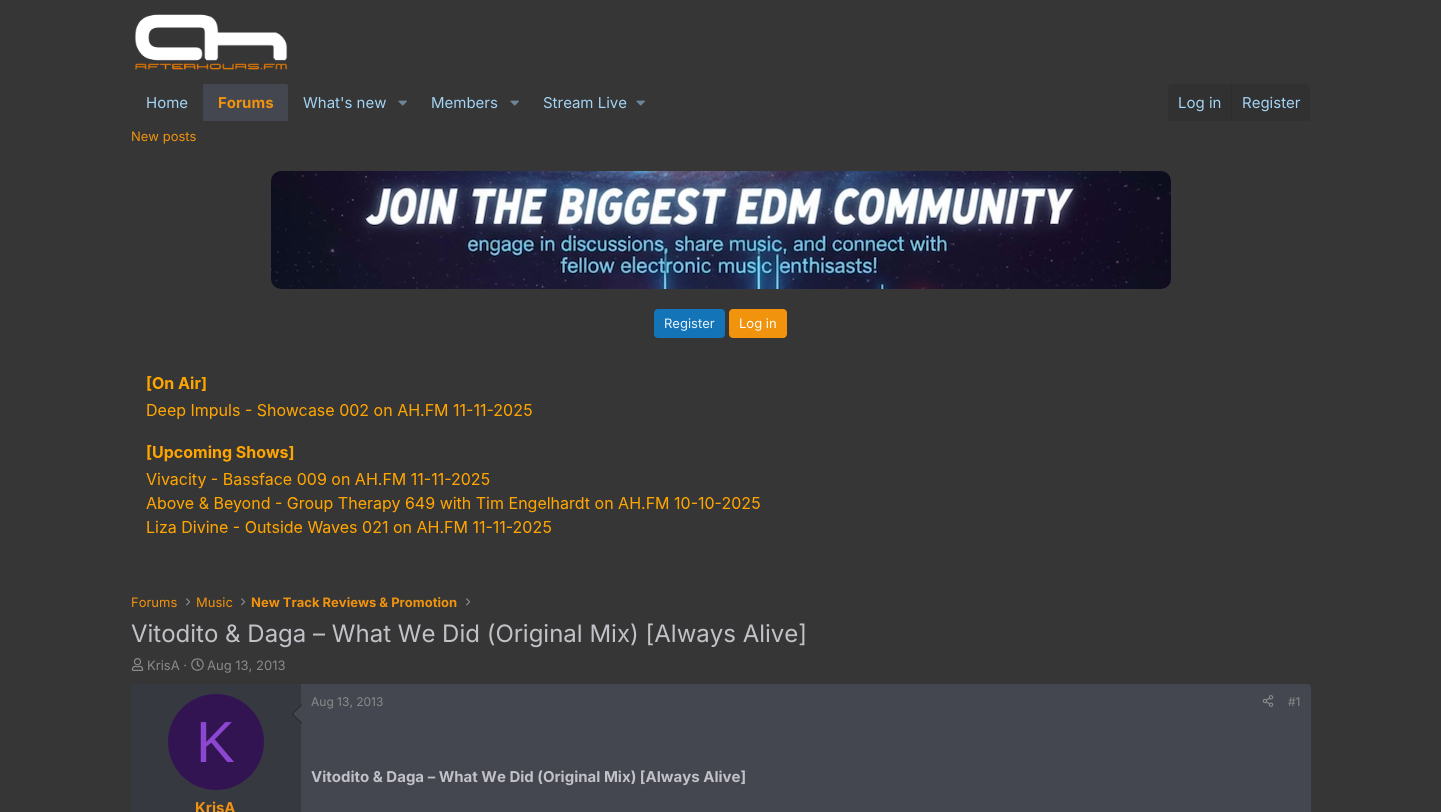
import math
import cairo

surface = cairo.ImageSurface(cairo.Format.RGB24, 1441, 812)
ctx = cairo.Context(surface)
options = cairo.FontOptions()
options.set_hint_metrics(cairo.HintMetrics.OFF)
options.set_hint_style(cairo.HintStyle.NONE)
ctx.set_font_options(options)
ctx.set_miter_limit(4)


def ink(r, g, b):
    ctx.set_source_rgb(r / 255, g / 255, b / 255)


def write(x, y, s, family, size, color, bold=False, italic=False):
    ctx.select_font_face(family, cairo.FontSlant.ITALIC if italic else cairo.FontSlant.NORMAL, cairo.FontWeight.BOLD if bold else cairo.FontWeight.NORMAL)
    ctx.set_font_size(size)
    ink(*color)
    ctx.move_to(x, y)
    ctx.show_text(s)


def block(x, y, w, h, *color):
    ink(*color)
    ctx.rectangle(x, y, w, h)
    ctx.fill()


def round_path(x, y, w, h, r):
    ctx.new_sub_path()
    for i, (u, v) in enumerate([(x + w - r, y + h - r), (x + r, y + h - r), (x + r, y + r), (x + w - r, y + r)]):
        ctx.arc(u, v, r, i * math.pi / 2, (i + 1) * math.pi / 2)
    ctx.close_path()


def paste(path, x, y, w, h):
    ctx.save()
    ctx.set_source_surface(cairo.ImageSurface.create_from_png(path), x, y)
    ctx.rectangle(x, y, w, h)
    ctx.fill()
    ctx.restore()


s1 = dict(family="Inter", size=15, color=(163, 212, 245))
s2 = dict(family="Inter", size=15, color=(242, 147, 13), bold=True)
s3 = dict(family="Inter", size=13, color=(242, 147, 13))
s4 = dict(family="Inter", size=13, color=(232, 244, 252))
s5 = dict(family="Inter", size=13, color=(255, 255, 255))
s6 = dict(family="Inter", size=13, color=(242, 147, 13), bold=True)
s7 = dict(family="Inter", size=24, color=(193, 193, 199))
s8 = dict(family="Inter", size=13, color=(138, 138, 138))
s9 = dict(family="Liberation Sans", size=58, color=(140, 71, 209))
s10 = dict(family="Inter", size=12, color=(138, 138, 138))
s11 = dict(family="Inter", size=15, color=(193, 193, 199), bold=True)

ink(54, 54, 54)
ctx.paint()
paste("pic1.png", 135, 14, 153, 56)
write(146, 108, "Home", **s1)
ink(68, 71, 79)
ctx.new_path()
ctx.move_to(205, 84)
ctx.line_to(286, 84)
ctx.curve_to(287, 84, 288, 85, 288, 86)
ctx.line_to(288, 121)
ctx.line_to(203, 121)
ctx.line_to(203, 86)
ctx.curve_to(203, 85, 204, 84, 205, 84)
ctx.close_path()
ctx.fill()
write(218, 108, "Forums", **s2)
write(303, 108, "What's new", **s1)
paste("pic2.png", 398, 100, 9, 6)
write(431, 108, "Members", **s1)
paste("pic2.png", 510, 100, 9, 6)
write(543, 108, "Stream Live", **s1)
paste("pic2.png", 636, 100, 9, 6)
ink(49, 49, 49)
ctx.new_path()
ctx.move_to(1172, 84)
ctx.line_to(1306, 84)
ctx.curve_to(1308, 84, 1310, 86, 1310, 88)
ctx.line_to(1310, 121)
ctx.line_to(1168, 121)
ctx.line_to(1168, 88)
ctx.curve_to(1168, 86, 1170, 84, 1172, 84)
ctx.close_path()
ctx.fill()
write(1178, 108, "Log in", **s1)
block(1231, 84, 1, 37, 45, 45, 45)
write(1242, 108, "Register", **s1)
write(131, 141, "New posts", **s3)
paste("pic3.png", 271, 171, 900, 118)
ink(20, 116, 184)
round_path(654, 309, 71, 29, 4)
ctx.fill()
write(664, 328, "Register", **s4)
ink(242, 147, 13)
round_path(729, 309, 58, 29, 4)
ctx.fill()
write(739, 328, "Log in", **s5)
paste("pic4.png", 146, 376, 614, 158)
write(131, 607, "Forums", **s3)
paste("pic5.png", 186, 598, 4, 8)
write(196, 607, "Music", **s3)
paste("pic6.png", 241, 598, 5, 8)
write(251, 607, "New Track Reviews & Promotion", **s6)
paste("pic5.png", 466, 598, 4, 8)
write(131, 642, "Vitodito & Daga – What We Did (Original Mix) [Always Alive]", **s7)
paste("pic7.png", 131, 658, 13, 13)
write(147, 670, "KrisA ·", **s8)
paste("pic8.png", 191, 658, 13, 13)
write(207, 670, "Aug 13, 2013", **s8)
ink(68, 71, 79)
round_path(131, 684, 1180, 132, 4)
ctx.fill()
ink(54, 57, 64)
ctx.new_path()
ctx.move_to(134, 684)
ctx.line_to(301, 684)
ctx.line_to(301, 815)
ctx.line_to(134, 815)
ctx.curve_to(132.5, 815, 131, 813.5, 131, 812)
ctx.line_to(131, 687)
ctx.curve_to(131, 685.5, 132.5, 684, 134, 684)
ctx.close_path()
ctx.fill()
ink(30, 32, 35)
ctx.new_path()
ctx.move_to(302, 704)
ctx.line_to(302, 724)
ctx.line_to(292, 714)
ctx.close_path()
ctx.fill()
ink(68, 71, 79)
ctx.new_path()
ctx.move_to(302, 705)
ctx.line_to(302, 723)
ctx.line_to(293, 714)
ctx.close_path()
ctx.fill()
ink(51, 20, 82)
ctx.arc(216, 742, 48, 0, 2 * math.pi)
ctx.fill()
write(196, 762, "K", **s9)
write(195, 813, "KrisA", **s2)
write(311, 706, "Aug 13, 2013", **s10)
paste("pic9.png", 1262, 695, 12, 12)
write(1288, 706, "#1", **s10)
write(311, 782, "Vitodito & Daga – What We Did (Original Mix) [Always Alive]", **s11)
surface.write_to_png("screenshot.png")
